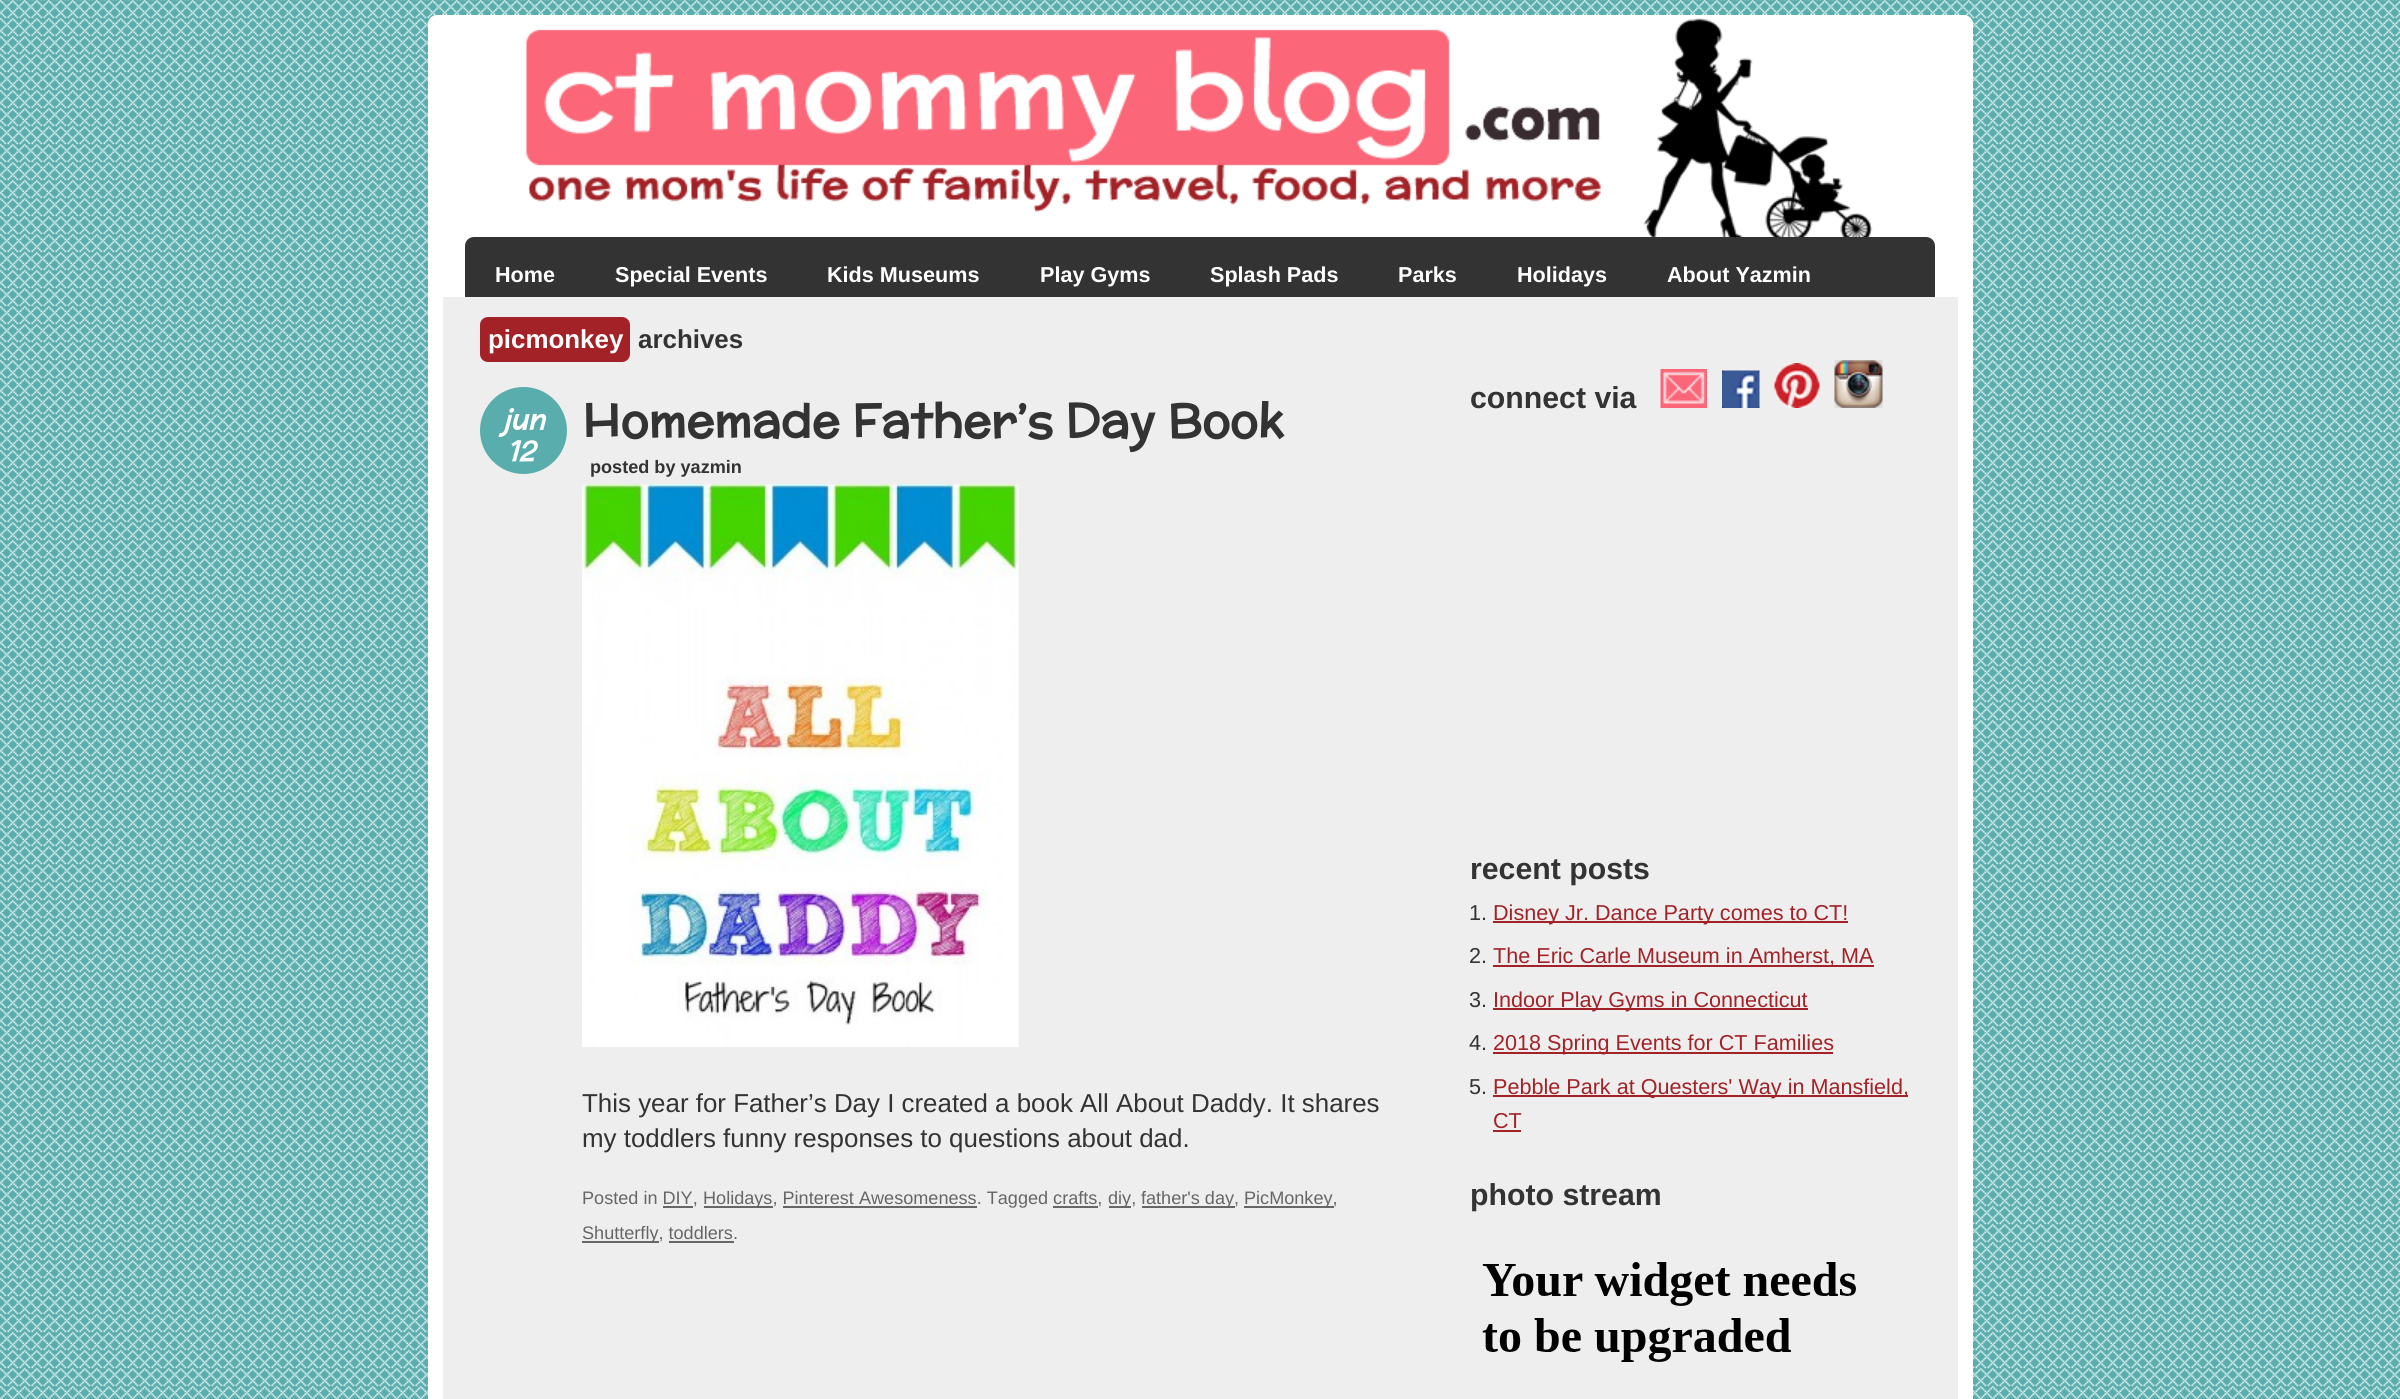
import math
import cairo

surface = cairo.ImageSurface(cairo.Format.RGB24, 2400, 1399)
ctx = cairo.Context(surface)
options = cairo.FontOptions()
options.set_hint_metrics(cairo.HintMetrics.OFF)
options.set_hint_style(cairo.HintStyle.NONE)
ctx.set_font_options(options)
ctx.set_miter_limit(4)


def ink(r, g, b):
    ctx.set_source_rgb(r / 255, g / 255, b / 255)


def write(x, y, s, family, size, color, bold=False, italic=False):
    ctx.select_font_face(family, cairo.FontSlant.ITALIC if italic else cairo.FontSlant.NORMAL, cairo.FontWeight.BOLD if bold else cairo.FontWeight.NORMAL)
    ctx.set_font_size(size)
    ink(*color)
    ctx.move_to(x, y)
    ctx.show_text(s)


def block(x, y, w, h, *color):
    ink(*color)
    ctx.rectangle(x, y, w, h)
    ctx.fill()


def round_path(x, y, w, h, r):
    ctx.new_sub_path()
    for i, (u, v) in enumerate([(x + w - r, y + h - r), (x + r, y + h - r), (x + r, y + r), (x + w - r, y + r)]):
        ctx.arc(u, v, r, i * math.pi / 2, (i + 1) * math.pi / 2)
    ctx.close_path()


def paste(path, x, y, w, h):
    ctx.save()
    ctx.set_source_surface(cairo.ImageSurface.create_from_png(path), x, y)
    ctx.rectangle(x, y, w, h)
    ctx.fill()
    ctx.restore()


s1 = dict(family="Liberation Sans", size=21.6, color=(255, 255, 255), bold=True)
s2 = dict(family="Liberation Sans", size=25.9, color=(255, 255, 255), bold=True)
s3 = dict(family="Liberation Sans", size=25.9, color=(51, 51, 51), bold=True)
s4 = dict(family="McLaren", size=28, color=(255, 255, 255), bold=True, italic=True)
s5 = dict(family="McLaren", size=46.7, color=(51, 51, 51), bold=True)
s6 = dict(family="Liberation Sans", size=18.1, color=(51, 51, 51), bold=True)
s7 = dict(family="Liberation Sans", size=25.9, color=(51, 51, 51))
s8 = dict(family="Liberation Sans", size=18.1, color=(102, 102, 102))
s9 = dict(family="Liberation Sans", size=30.25, color=(51, 51, 51), bold=True)
s10 = dict(family="Liberation Sans", size=21.6, color=(51, 51, 51))
s11 = dict(family="Liberation Sans", size=21.6, color=(163, 34, 39))

ink(255, 255, 255)
ctx.paint()
paste("pic1.png", 0, 0, 2400, 1399)
ink(255, 255, 255)
ctx.new_path()
ctx.move_to(437, 15)
ctx.line_to(1964, 15)
ctx.curve_to(1969, 15, 1973, 19, 1973, 24)
ctx.line_to(1973, 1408)
ctx.line_to(428, 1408)
ctx.line_to(428, 24)
ctx.curve_to(428, 19, 432, 15, 437, 15)
ctx.close_path()
ctx.fill()
paste("pic2.png", 526, 18, 1347, 219)
ink(51, 51, 51)
ctx.new_path()
ctx.move_to(474, 237)
ctx.line_to(1926, 237)
ctx.curve_to(1931, 237, 1935, 241, 1935, 246)
ctx.line_to(1935, 297)
ctx.line_to(465, 297)
ctx.line_to(465, 246)
ctx.curve_to(465, 241, 469, 237, 474, 237)
ctx.close_path()
ctx.fill()
write(495, 282, "Home", **s1)
write(615, 282, "Special Events", **s1)
write(827, 282, "Kids Museums", **s1)
write(1040, 282, "Play Gyms", **s1)
write(1210, 282, "Splash Pads", **s1)
write(1398, 282, "Parks", **s1)
write(1517, 282, "Holidays", **s1)
write(1667, 282, "About Yazmin", **s1)
block(443, 297, 1515, 1102, 238, 238, 238)
ink(163, 34, 39)
round_path(480, 317, 150, 45, 8)
ctx.fill()
write(488, 348, "picmonkey", **s2)
write(638, 348, "archives", **s3)
ink(90, 173, 173)
ctx.new_path()
ctx.arc(523.5, 430.5, 43.5, 0, 2 * math.pi)
ctx.fill()
write(503, 429, "jun", **s4)
write(507, 461, "12", **s4)
write(582, 437, "Homemade Father’s Day Book", **s5)
write(590, 473, "posted by yazmin", **s6)
paste("pic3.png", 582, 484, 437, 563)
write(582, 1112, "This year for Father’s Day I created a book All About Daddy. It shares", **s7)
write(582, 1147, "my toddlers funny responses to questions about dad.", **s7)
write(582, 1204, "Posted in DIY,", **s8)
block(663, 1206, 30, 2, 102, 102, 102)
block(704, 1206, 69, 2, 102, 102, 102)
write(703, 1204, "Holidays, Pinterest Awesomeness. Tagged crafts,", **s8)
block(783, 1206, 194, 2, 102, 102, 102)
block(1109, 1206, 22, 2, 102, 102, 102)
write(1108, 1204, "diy,", **s8)
block(1053, 1206, 45, 2, 102, 102, 102)
block(1142, 1206, 93, 2, 102, 102, 102)
write(1141, 1204, "father's day,", **s8)
block(1244, 1206, 90, 2, 102, 102, 102)
write(1244, 1204, "PicMonkey,", **s8)
block(582, 1241, 77, 2, 102, 102, 102)
write(582, 1239, "Shutterfly, toddlers.", **s8)
block(669, 1241, 65, 2, 102, 102, 102)
write(1470, 408, "connect via", **s9)
paste("pic4.png", 1660, 369, 47, 39)
paste("pic5.png", 1722, 370, 38, 38)
paste("pic6.png", 1774, 363, 46, 45)
paste("pic7.png", 1834, 360, 49, 48)
write(1470, 879, "recent posts", **s9)
write(1469, 920, "1.", **s10)
block(1493, 921, 355, 2, 163, 34, 39)
write(1493, 920, "Disney Jr. Dance Party comes to CT!", **s11)
write(1469, 963, "2.", **s10)
block(1493, 965, 381, 2, 163, 34, 39)
write(1493, 963, "The Eric Carle Museum in Amherst, MA", **s11)
write(1469, 1007, "3.", **s10)
block(1493, 1008, 315, 2, 163, 34, 39)
write(1493, 1007, "Indoor Play Gyms in Connecticut", **s11)
write(1469, 1050, "4.", **s10)
block(1493, 1052, 340, 2, 163, 34, 39)
write(1493, 1050, "2018 Spring Events for CT Families", **s11)
write(1469, 1094, "5.", **s10)
block(1493, 1095, 415, 2, 163, 34, 39)
write(1493, 1094, "Pebble Park at Questers' Way in Mansfield,", **s11)
write(1493, 1128, "CT", **s11)
block(1493, 1130, 28, 2, 163, 34, 39)
write(1470, 1205, "photo stream", **s9)
paste("pic8.png", 1482, 1262, 374, 100)
surface.write_to_png("screenshot.png")
